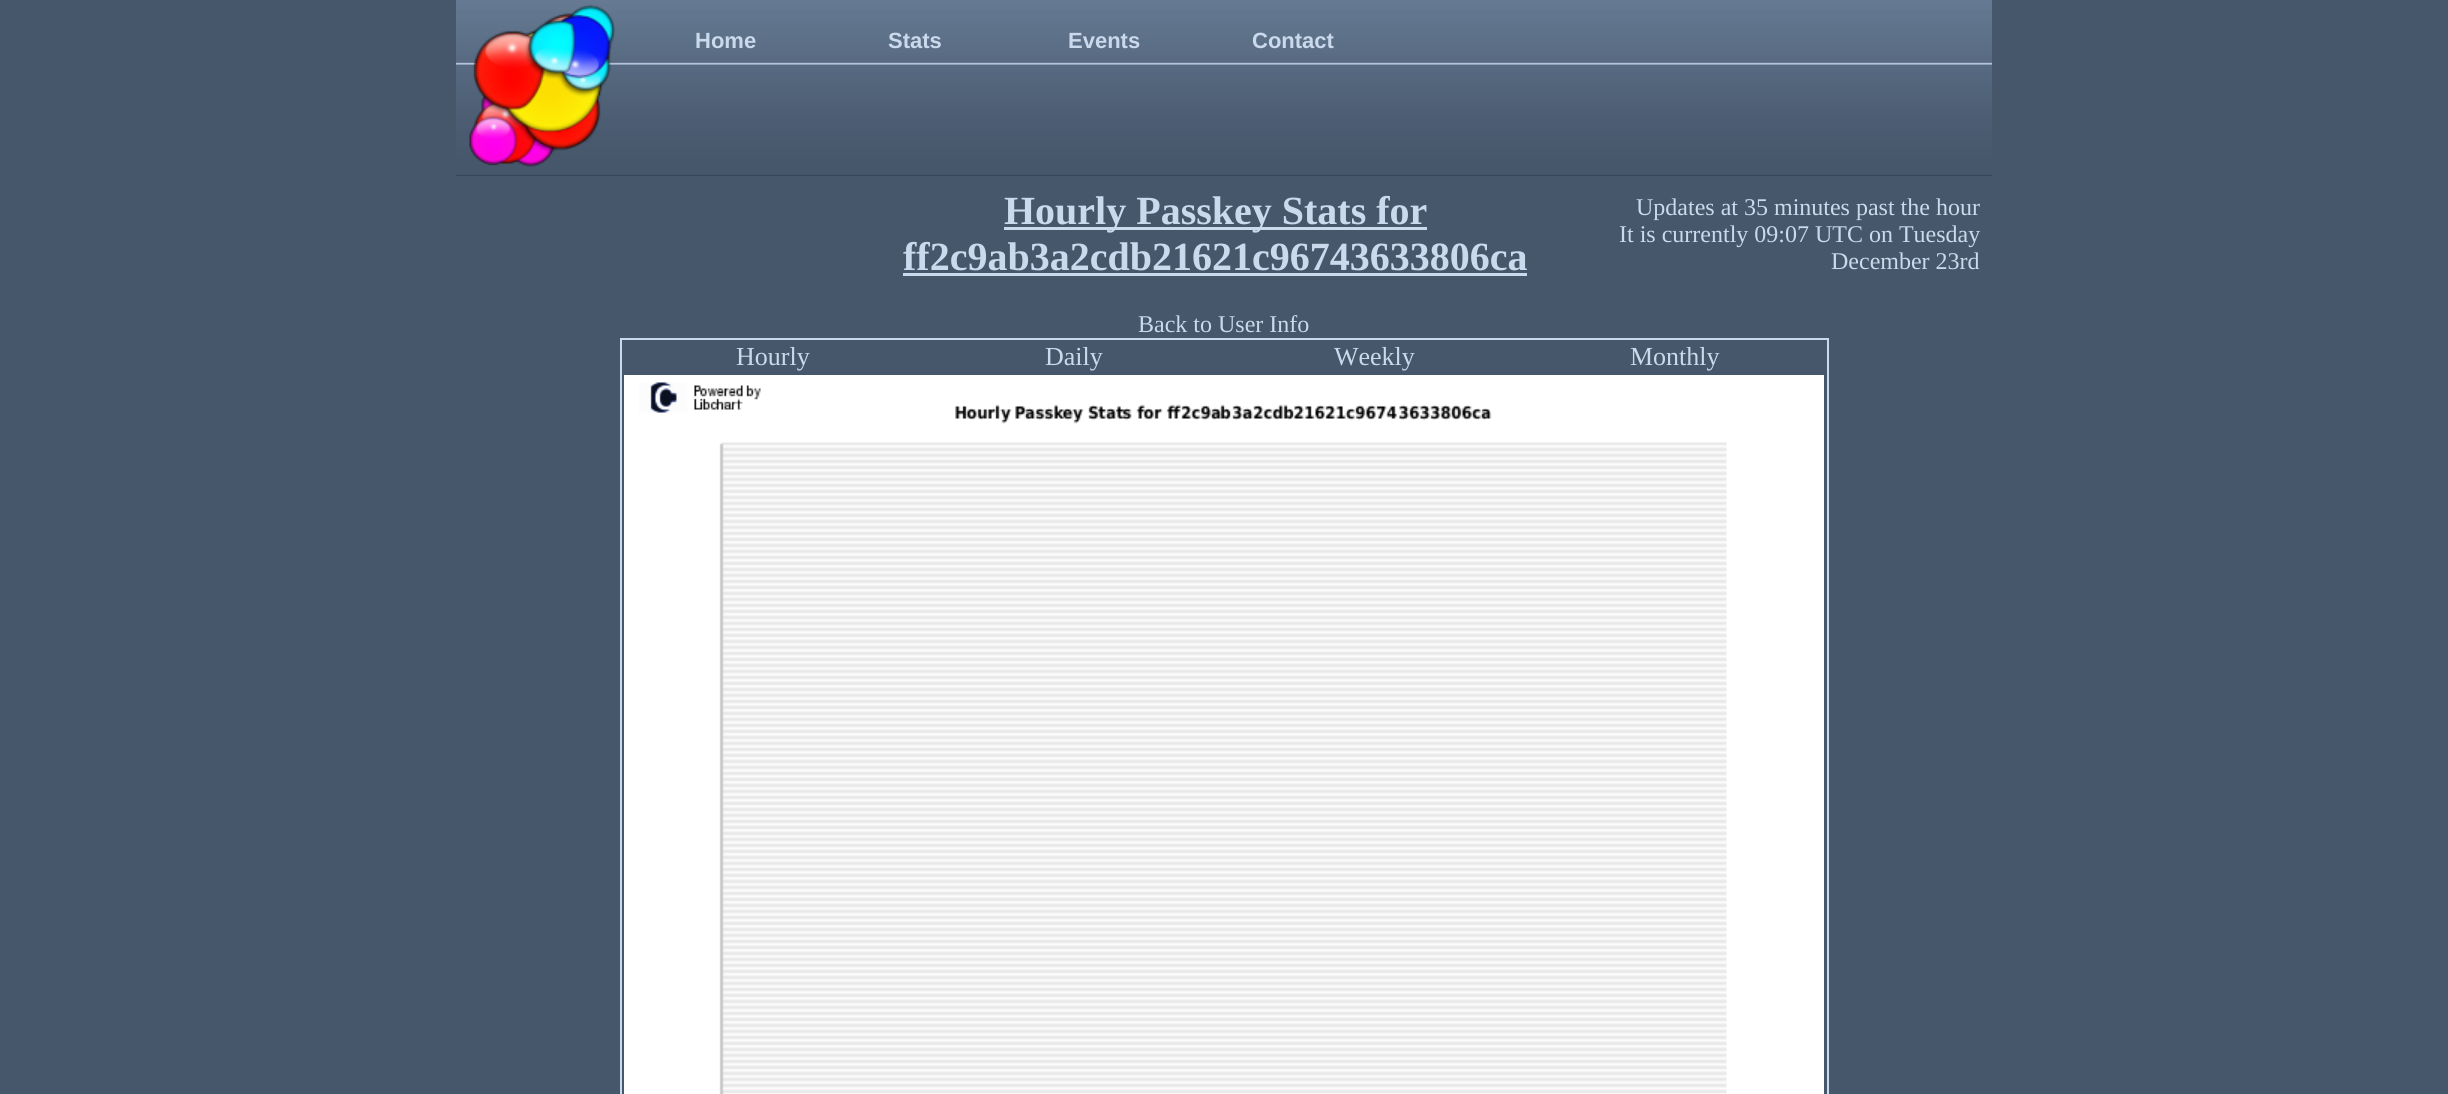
import math
import cairo

surface = cairo.ImageSurface(cairo.Format.RGB24, 2448, 1094)
ctx = cairo.Context(surface)
options = cairo.FontOptions()
options.set_hint_metrics(cairo.HintMetrics.OFF)
options.set_hint_style(cairo.HintStyle.NONE)
ctx.set_font_options(options)
ctx.set_miter_limit(4)


def ink(r, g, b):
    ctx.set_source_rgb(r / 255, g / 255, b / 255)


def write(x, y, s, family, size, color, bold=False, italic=False):
    ctx.select_font_face(family, cairo.FontSlant.ITALIC if italic else cairo.FontSlant.NORMAL, cairo.FontWeight.BOLD if bold else cairo.FontWeight.NORMAL)
    ctx.set_font_size(size)
    ink(*color)
    ctx.move_to(x, y)
    ctx.show_text(s)


def block(x, y, w, h, *color):
    ink(*color)
    ctx.rectangle(x, y, w, h)
    ctx.fill()


def paste(path, x, y, w, h):
    ctx.save()
    ctx.set_source_surface(cairo.ImageSurface.create_from_png(path), x, y)
    ctx.rectangle(x, y, w, h)
    ctx.fill()
    ctx.restore()


s1 = dict(family="Liberation Sans", size=22, color=(202, 217, 236), bold=True)
s2 = dict(family="Liberation Serif", size=40, color=(202, 217, 236), bold=True)
s3 = dict(family="Liberation Serif", size=24, color=(202, 217, 236))
s4 = dict(family="Liberation Serif", size=26, color=(202, 217, 236))

ink(70, 87, 107)
ctx.paint()
block(456, 175, 1536, 1, 39, 54, 73)
paste("pic1.png", 456, 0, 1536, 176)
paste("pic2.png", 469, 4, 147, 163)
write(695, 48, "Home", **s1)
write(888, 48, "Stats", **s1)
write(1068, 48, "Events", **s1)
write(1252, 48, "Contact", **s1)
block(1004, 227, 423, 3, 202, 217, 236)
write(1004, 224, "Hourly Passkey Stats for", **s2)
write(903, 270, "ff2c9ab3a2cdb21621c96743633806ca", **s2)
block(903, 273, 624, 3, 202, 217, 236)
write(1636, 215, "Updates at 35 minutes past the hour", **s3)
write(1619, 242, "It is currently 09:07 UTC on Tuesday", **s3)
write(1831, 269, "December 23rd", **s3)
write(1138, 332, "Back to User Info", **s3)
ctx.rectangle(621, 339, 1207, 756)
ctx.stroke()
write(736, 365, "Hourly", **s4)
write(1045, 365, "Daily", **s4)
write(1334, 365, "Weekly", **s4)
write(1630, 365, "Monthly", **s4)
paste("pic3.png", 624, 375, 1200, 719)
surface.write_to_png("screenshot.png")
